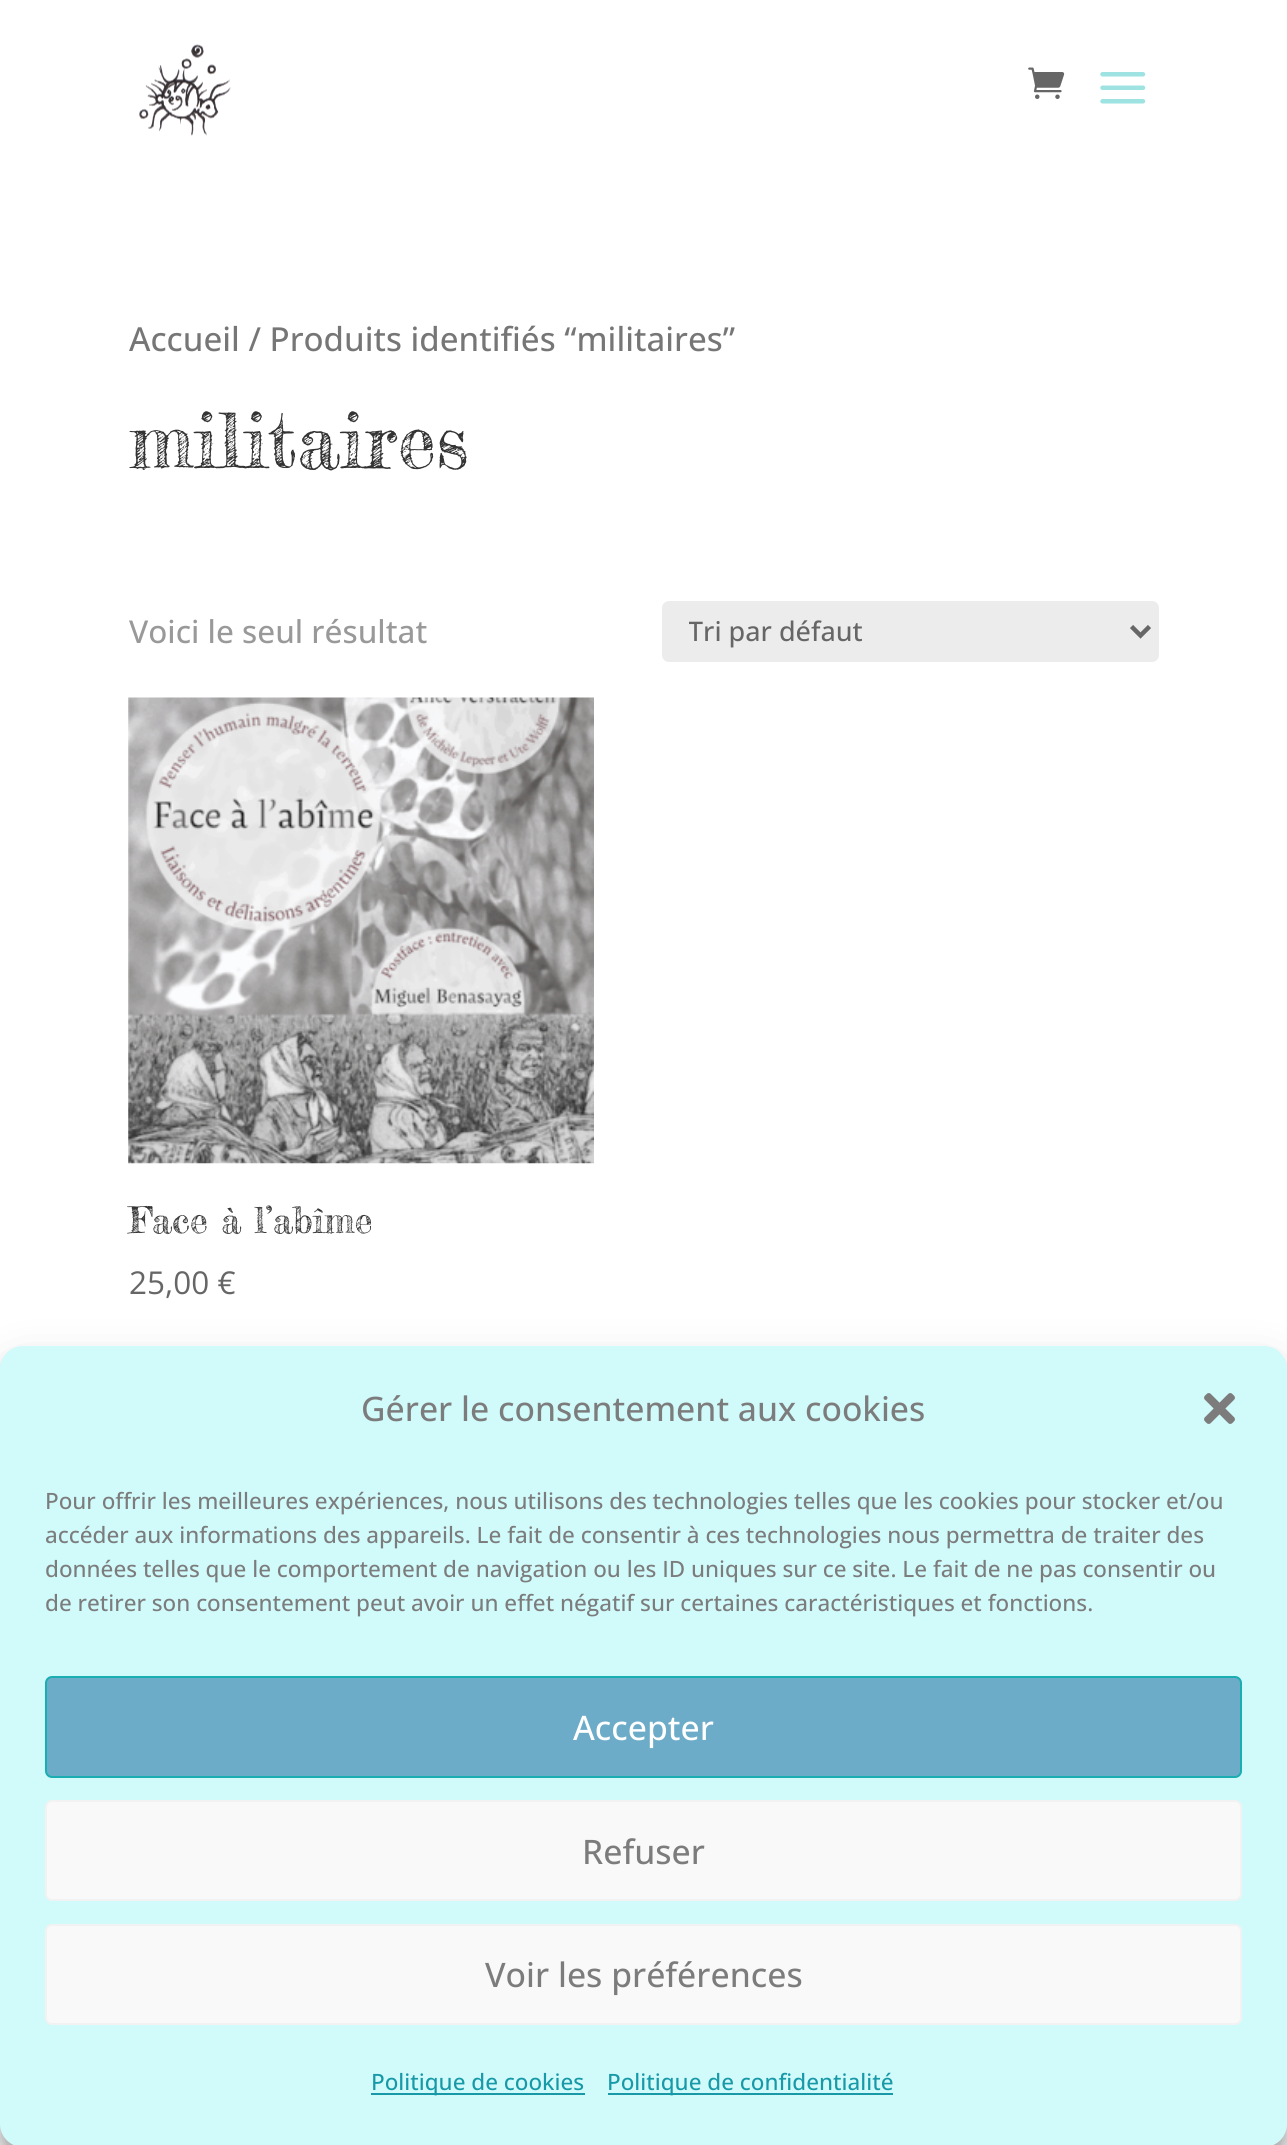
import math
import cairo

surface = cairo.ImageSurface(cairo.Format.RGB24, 1287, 2145)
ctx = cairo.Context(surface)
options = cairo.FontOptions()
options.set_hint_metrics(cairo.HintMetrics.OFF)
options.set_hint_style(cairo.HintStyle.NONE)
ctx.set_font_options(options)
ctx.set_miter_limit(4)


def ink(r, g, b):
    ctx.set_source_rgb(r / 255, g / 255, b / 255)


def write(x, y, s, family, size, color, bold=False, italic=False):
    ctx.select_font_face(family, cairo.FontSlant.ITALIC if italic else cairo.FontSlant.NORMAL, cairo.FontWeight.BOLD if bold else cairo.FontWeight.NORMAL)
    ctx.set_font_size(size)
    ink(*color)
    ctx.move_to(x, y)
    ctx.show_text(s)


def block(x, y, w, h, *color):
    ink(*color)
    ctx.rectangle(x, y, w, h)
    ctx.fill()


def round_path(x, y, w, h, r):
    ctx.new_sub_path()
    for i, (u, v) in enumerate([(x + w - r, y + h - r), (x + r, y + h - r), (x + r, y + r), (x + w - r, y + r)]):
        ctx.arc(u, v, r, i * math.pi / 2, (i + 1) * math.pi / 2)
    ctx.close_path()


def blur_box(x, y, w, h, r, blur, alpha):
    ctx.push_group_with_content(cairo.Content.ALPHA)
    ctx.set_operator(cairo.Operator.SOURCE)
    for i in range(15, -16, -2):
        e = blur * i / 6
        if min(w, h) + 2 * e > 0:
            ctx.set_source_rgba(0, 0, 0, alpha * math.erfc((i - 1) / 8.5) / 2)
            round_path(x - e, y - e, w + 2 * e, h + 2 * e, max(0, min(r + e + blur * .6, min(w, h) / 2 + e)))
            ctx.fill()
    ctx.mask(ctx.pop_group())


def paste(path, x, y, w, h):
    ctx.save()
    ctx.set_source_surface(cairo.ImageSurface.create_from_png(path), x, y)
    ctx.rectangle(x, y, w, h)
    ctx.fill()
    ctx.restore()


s1 = dict(family="Open Sans Medium", size=33.1, color=(118, 118, 118))
s2 = dict(family="Fredericka the Great", size=76.5, color=(51, 51, 51))
s3 = dict(family="Open Sans Medium", size=31.5, color=(153, 153, 153))
s4 = dict(family="Open Sans Medium", size=27, color=(102, 102, 102))
s5 = dict(family="Fredericka the Great", size=36, color=(51, 51, 51))
s6 = dict(family="Open Sans", size=31.5, color=(102, 102, 102))
s7 = dict(family="Open Sans Medium", size=33.75, color=(124, 124, 124))
s8 = dict(family="Open Sans Medium", size=22.5, color=(124, 124, 124))
s9 = dict(family="Open Sans Medium", size=33.75, color=(255, 255, 255))
s10 = dict(family="Open Sans Medium", size=22.5, color=(23, 153, 168))

ink(255, 255, 255)
ctx.paint()
paste("pic1.png", 139, 44, 92, 92)
paste("pic2.png", 1028, 67, 37, 32)
paste("pic3.png", 1100, 72, 46, 32)
write(129, 351, "Accueil / Produits identifiés “militaires”", **s1)
write(129, 468, "militaires", **s2)
write(129, 643, "Voici le seul résultat", **s3)
ink(236, 236, 236)
round_path(662, 601, 497, 61, 7)
ctx.fill()
ctx.new_path()
ctx.move_to(1131.5, 626.5)
ctx.line_to(1140.5, 635.5)
ctx.line_to(1149.5, 626.5)
ink(102, 102, 102)
ctx.set_line_width(4.5)
ctx.stroke()
ctx.save()
ctx.rectangle(689, 610, 416, 43)
ctx.clip()
write(688, 641, "Tri par défaut", **s4)
ctx.restore()
paste("pic4.png", 128, 697, 466, 467)
write(129, 1233, "Face à l’abîme", **s5)
write(129, 1294, "25,00 €", **s6)
ink(0, 0, 0)
blur_box(0, 1359, 1287, 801, 23, 7, 0.23)
blur_box(0, 1368, 1287, 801, 23, 22.5, 0.19)
ink(209, 250, 251)
round_path(0, 1346, 1287, 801, 23)
ctx.fill()
write(361, 1421, "Gérer le consentement aux cookies", **s7)
paste("pic5.png", 1204, 1393, 31, 31)
write(45, 1509, "Pour offrir les meilleures expériences, nous utilisons des technologies telles que les cookies pour stocker et/ou", **s8)
write(45, 1543, "accéder aux informations des appareils. Le fait de consentir à ces technologies nous permettra de traiter des", **s8)
write(45, 1577, "données telles que le comportement de navigation ou les ID uniques sur ce site. Le fait de ne pas consentir ou", **s8)
write(45, 1611, "de retirer son consentement peut avoir un effet négatif sur certaines caractéristiques et fonctions.", **s8)
ink(108, 172, 201)
round_path(46, 1677, 1195, 100, 6)
ctx.fill_preserve()
ink(26, 173, 178)
ctx.set_line_width(2)
ctx.stroke()
write(573, 1740, "Accepter", **s9)
ink(249, 249, 249)
round_path(46, 1801, 1195, 99, 6)
ctx.fill_preserve()
ink(242, 242, 242)
ctx.stroke()
write(582, 1864, "Refuser", **s7)
ink(249, 249, 249)
round_path(46, 1925, 1195, 99, 6)
ctx.fill_preserve()
ink(242, 242, 242)
ctx.stroke()
write(485, 1987, "Voir les préférences", **s7)
block(371, 2093, 214, 2, 23, 153, 168)
write(371, 2090, "Politique de cookies", **s10)
block(608, 2093, 285, 2, 23, 153, 168)
write(607, 2090, "Politique de confidentialité", **s10)
surface.write_to_png("screenshot.png")
